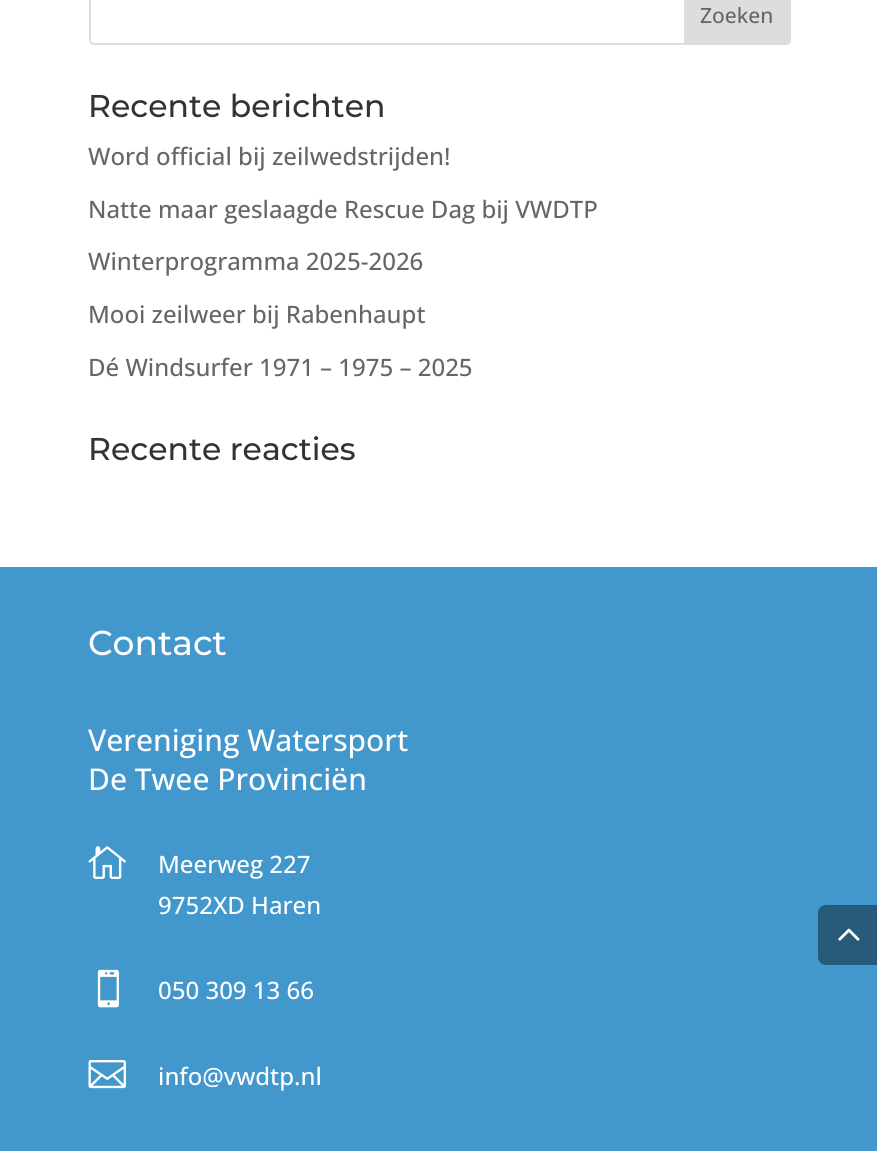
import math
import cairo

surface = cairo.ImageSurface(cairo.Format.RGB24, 877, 1151)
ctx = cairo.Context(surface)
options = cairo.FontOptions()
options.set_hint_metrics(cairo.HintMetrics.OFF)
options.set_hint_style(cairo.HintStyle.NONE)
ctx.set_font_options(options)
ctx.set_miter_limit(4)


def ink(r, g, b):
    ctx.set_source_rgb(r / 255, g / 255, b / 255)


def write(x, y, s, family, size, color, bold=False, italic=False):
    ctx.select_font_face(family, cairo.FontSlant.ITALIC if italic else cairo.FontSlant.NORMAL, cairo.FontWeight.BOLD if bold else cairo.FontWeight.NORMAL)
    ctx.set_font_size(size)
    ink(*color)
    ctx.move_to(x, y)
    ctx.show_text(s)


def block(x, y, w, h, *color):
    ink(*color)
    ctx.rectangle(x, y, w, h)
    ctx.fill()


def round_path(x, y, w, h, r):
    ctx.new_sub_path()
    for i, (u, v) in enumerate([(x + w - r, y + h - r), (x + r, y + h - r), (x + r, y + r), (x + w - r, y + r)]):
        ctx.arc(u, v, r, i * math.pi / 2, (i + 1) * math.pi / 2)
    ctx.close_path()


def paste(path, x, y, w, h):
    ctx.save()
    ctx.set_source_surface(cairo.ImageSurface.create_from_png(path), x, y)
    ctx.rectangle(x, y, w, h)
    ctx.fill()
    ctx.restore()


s1 = dict(family="Open Sans Medium", size=21, color=(102, 102, 102))
s2 = dict(family="Montserrat Medium", size=31.5, color=(51, 51, 51))
s3 = dict(family="Open Sans Medium", size=24, color=(102, 102, 102))
s4 = dict(family="Montserrat Medium", size=34.5, color=(255, 255, 255))
s5 = dict(family="Open Sans Medium", size=30, color=(255, 255, 255))
s6 = dict(family="Open Sans Medium", size=24, color=(255, 255, 255))

ink(255, 255, 255)
ctx.paint()
round_path(90, -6, 700, 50, 4)
ink(221, 221, 221)
ctx.stroke()
ctx.new_path()
ctx.move_to(685, -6)
ctx.line_to(786, -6)
ctx.curve_to(788, -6, 790, -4, 790, -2)
ctx.line_to(790, 40)
ctx.curve_to(790, 42, 788, 44, 786, 44)
ctx.line_to(685, 44)
ctx.close_path()
ctx.fill_preserve()
ctx.stroke()
write(700, 23, "Zoeken", **s1)
write(88, 117, "Recente berichten", **s2)
write(88, 165, "Word official bij zeilwedstrijden!", **s3)
write(88, 218, "Natte maar geslaagde Rescue Dag bij VWDTP", **s3)
write(88, 270, "Winterprogramma 2025-2026", **s3)
write(88, 323, "Mooi zeilweer bij Rabenhaupt", **s3)
write(88, 376, "Dé Windsurfer 1971 – 1975 – 2025", **s3)
write(88, 460, "Recente reacties", **s2)
block(0, 567, 877, 584, 66, 152, 204)
write(88, 655, "Contact", **s4)
write(88, 751, "Vereniging Watersport", **s5)
write(88, 790, "De Twee Provinciën", **s5)
paste("pic1.png", 88, 846, 38, 33)
write(158, 873, "Meerweg 227", **s6)
write(158, 914, "9752XD Haren", **s6)
paste("pic2.png", 97, 969, 22, 39)
write(158, 999, "050 309 13 66", **s6)
paste("pic3.png", 88, 1060, 38, 29)
write(158, 1085, "info@vwdtp.nl", **s6)
ink(40, 91, 122)
ctx.new_path()
ctx.move_to(826, 905)
ctx.line_to(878, 905)
ctx.line_to(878, 965)
ctx.line_to(826, 965)
ctx.curve_to(821.5, 965, 818, 961.5, 818, 957)
ctx.line_to(818, 913)
ctx.curve_to(818, 908.5, 821.5, 905, 826, 905)
ctx.close_path()
ctx.fill()
paste("pic4.png", 838, 928, 22, 13)
surface.write_to_png("screenshot.png")
